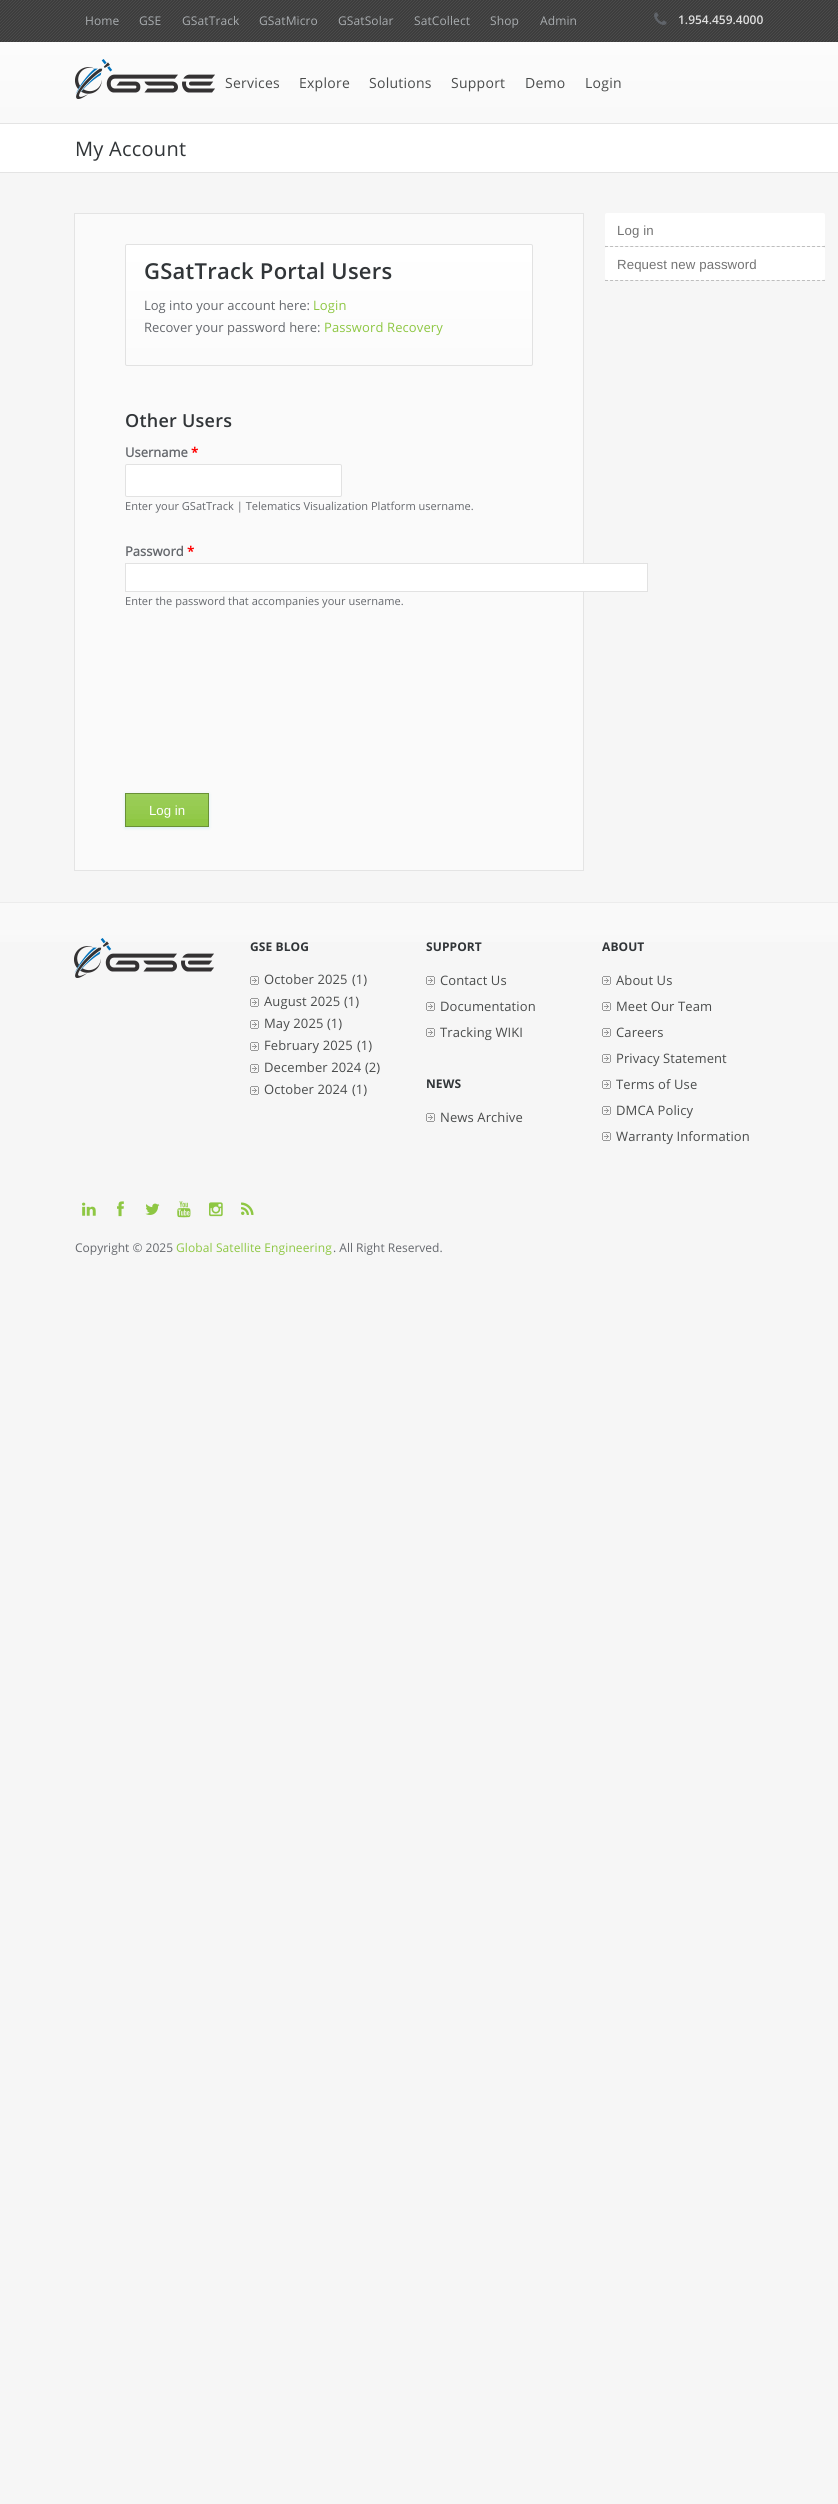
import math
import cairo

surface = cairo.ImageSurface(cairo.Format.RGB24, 838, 2504)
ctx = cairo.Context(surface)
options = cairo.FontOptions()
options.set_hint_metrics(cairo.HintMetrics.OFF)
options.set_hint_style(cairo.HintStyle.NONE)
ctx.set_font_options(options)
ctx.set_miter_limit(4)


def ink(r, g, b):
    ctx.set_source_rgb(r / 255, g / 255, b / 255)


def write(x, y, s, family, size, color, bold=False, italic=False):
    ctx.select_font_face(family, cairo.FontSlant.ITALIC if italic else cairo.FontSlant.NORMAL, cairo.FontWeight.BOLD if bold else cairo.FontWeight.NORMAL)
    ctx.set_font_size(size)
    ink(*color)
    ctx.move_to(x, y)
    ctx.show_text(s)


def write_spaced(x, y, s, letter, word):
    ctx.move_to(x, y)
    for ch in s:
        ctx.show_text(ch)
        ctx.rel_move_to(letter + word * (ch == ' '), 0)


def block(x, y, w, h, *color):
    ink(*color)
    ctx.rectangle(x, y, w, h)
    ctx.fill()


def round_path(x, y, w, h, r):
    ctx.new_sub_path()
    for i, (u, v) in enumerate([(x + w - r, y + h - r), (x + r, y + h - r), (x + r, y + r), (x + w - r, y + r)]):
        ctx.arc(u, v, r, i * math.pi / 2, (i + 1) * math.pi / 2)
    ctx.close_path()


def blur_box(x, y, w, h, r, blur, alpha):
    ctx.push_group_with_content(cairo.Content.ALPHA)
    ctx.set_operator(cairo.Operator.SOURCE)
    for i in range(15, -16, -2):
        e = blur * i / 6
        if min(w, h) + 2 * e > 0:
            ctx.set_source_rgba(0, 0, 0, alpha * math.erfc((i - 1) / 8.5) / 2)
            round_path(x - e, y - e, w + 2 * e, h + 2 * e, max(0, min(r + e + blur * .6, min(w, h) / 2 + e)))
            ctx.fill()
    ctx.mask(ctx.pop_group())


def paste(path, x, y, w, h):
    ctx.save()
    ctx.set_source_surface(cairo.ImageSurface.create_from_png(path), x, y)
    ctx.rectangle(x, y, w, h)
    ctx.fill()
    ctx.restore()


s1 = dict(family="Open Sans SemiBold", size=12, color=(223, 223, 223))
s2 = dict(family="Open Sans", size=13, color=(101, 104, 109))
s3 = dict(family="Open Sans", size=13, color=(101, 104, 109), bold=True)
s4 = dict(family="Open Sans", size=13, color=(255, 0, 0), bold=True)
s5 = dict(family="Open Sans", size=11.05, color=(101, 104, 109))
s6 = dict(family="Liberation Sans", size=13.25, color=(255, 255, 255))
s7 = dict(family="Open Sans", size=13, color=(74, 76, 76))
s8 = dict(family="Open Sans", size=12, color=(101, 104, 109))

ink(246, 246, 246)
ctx.paint()
paste("pic1.png", 0, 0, 838, 42)
ctx.select_font_face("Open Sans")
ctx.set_font_size(12)
ink(168, 172, 175)
write_spaced(85, 25, "Home", 0.1, 0)
write_spaced(139, 25, "GSE", 0.1, 0)
write_spaced(182, 25, "GSatTrack", 0.1, 0)
write_spaced(259, 25, "GSatMicro", 0.1, 0)
write_spaced(338, 25, "GSatSolar", 0.1, 0)
write_spaced(414, 25, "SatCollect", 0.1, 0)
write_spaced(490, 25, "Shop", 0.1, 0)
write_spaced(540, 25, "Admin", 0.1, 0)
paste("pic2.png", 654, 12, 13, 13)
write(678, 24, "1.954.459.4000", **s1)
gradient = cairo.LinearGradient(419, 42, 419, 123)
gradient.add_color_stop_rgba(0.02, 0.988, 0.988, 0.988, 1)
gradient.add_color_stop_rgba(1, 0.976, 0.976, 0.976, 1)
ctx.set_source(gradient)
ctx.rectangle(0, 42, 838, 81)
ctx.fill()
paste("pic3.png", 75, 59, 140, 40)
ctx.select_font_face("Open Sans")
ctx.set_font_size(14)
ink(74, 76, 76)
write_spaced(225, 88, "Services", 0.25, 0)
write_spaced(299, 88, "Explore", 0.25, 0)
write_spaced(369, 88, "Solutions", 0.25, 0)
write_spaced(451, 88, "Support", 0.25, 0)
write_spaced(525, 88, "Demo", 0.25, 0)
write_spaced(585, 88, "Login", 0.25, 0)
block(0, 124, 838, 48, 255, 255, 255)
block(0, 123, 838, 1, 228, 228, 228)
block(0, 172, 838, 1, 228, 228, 228)
ctx.set_font_size(20)
ink(49, 53, 56)
write_spaced(75, 156, "My Account", 0.25, 0)
ctx.new_path()
ctx.move_to(605, 246.5)
ctx.line_to(825, 246.5)
ink(190, 190, 190)
ctx.set_line_width(1)
ctx.set_dash([3, 2.05])
ctx.stroke()
ink(255, 255, 255)
round_path(605, 213, 220, 33, 2)
ctx.fill()
ctx.select_font_face("Liberation Sans")
ctx.set_font_size(13.25)
ink(115, 115, 115)
write_spaced(617, 235, "Log in", 0.1, 0)
ctx.new_path()
ctx.move_to(605, 280.5)
ctx.line_to(825, 280.5)
ink(190, 190, 190)
ctx.stroke()
ink(255, 255, 255)
round_path(605, 247, 220, 33, 2)
ctx.fill()
ink(115, 115, 115)
write_spaced(617, 269, "Request new password", 0.1, 0)
ink(250, 250, 250)
ctx.rectangle(74.5, 213.5, 509, 657)
ctx.fill_preserve()
ink(228, 228, 228)
ctx.set_dash([])
ctx.stroke()
ctx.save()
round_path(125, 244, 408, 122, 2)
ctx.clip()
gradient = cairo.LinearGradient(329, 245, 329, 365)
gradient.add_color_stop_rgba(0.02, 1, 1, 1, 1)
gradient.add_color_stop_rgba(1, 0.984, 0.984, 0.984, 1)
ctx.set_source(gradient)
ctx.rectangle(125, 245, 408, 120)
ctx.fill()
ctx.restore()
round_path(125.5, 244.5, 407, 121, 1.5)
ink(226, 226, 226)
ctx.stroke()
ctx.select_font_face("Open Sans SemiBold")
ctx.set_font_size(22)
ink(49, 53, 56)
write_spaced(144, 279, "GSatTrack Portal Users", 0.25, 0)
write(144, 310, "Log into your account here:", **s2)
ink(142, 199, 67)
write_spaced(313, 310, "Login", 0.1, 0)
write(144, 332, "Recover your password here:", **s2)
ink(142, 199, 67)
write_spaced(324, 332, "Password Recovery", 0.1, 0)
ctx.select_font_face("Open Sans SemiBold")
ctx.set_font_size(18)
ink(49, 53, 56)
write_spaced(125, 427, "Other Users", 0.25, 0)
write(125, 457, "Username", **s3)
write(191, 457, "*", **s4)
ink(255, 255, 255)
round_path(125.5, 464.5, 216, 32, 1.5)
ctx.fill_preserve()
ink(226, 226, 226)
ctx.stroke()
write(125, 510, "Enter your GSatTrack | Telematics Visualization Platform username.", **s5)
write(125, 556, "Password", **s3)
write(187, 556, "*", **s4)
ink(255, 255, 255)
ctx.rectangle(125.5, 563.5, 522, 28)
ctx.fill_preserve()
ink(226, 226, 226)
ctx.stroke()
write(125, 605, "Enter the password that accompanies your username.", **s5)
ink(213, 239, 241)
blur_box(125, 794, 84, 34, 0, 1.5, 1)
block(126, 794, 82, 32, 142, 199, 67)
paste("pic4.png", 126, 794, 82, 25)
ctx.rectangle(125.5, 793.5, 83, 33)
ink(106, 144, 55)
ctx.stroke()
write(149, 815, "Log in", **s6)
gradient = cairo.LinearGradient(419, 903, 419, 1179)
gradient.add_color_stop_rgba(0.02, 0.976, 0.976, 0.976, 1)
gradient.add_color_stop_rgba(1, 0.961, 0.961, 0.961, 1)
ctx.set_source(gradient)
ctx.rectangle(0, 903, 838, 39)
ctx.fill()
block(0, 902, 838, 1, 236, 236, 236)
paste("pic5.png", 74, 938, 140, 40)
ctx.select_font_face("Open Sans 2", cairo.FontSlant.NORMAL, cairo.FontWeight.BOLD)
ctx.set_font_size(12)
ink(49, 53, 56)
write_spaced(250, 951, "GSE BLOG", 0.1, 0)
paste("pic6.png", 250, 976, 9, 9)
ctx.select_font_face("Open Sans")
ctx.set_font_size(13)
ink(74, 76, 76)
write_spaced(264, 984, "October 2025", 0.1, 0)
write(352, 984, "(1)", **s7)
paste("pic6.png", 250, 998, 9, 9)
write_spaced(264, 1006, "August 2025", 0.1, 0)
write(344, 1006, "(1)", **s7)
paste("pic7.png", 250, 1020, 9, 9)
write_spaced(264, 1028, "May 2025", 0.1, 0)
write(327, 1028, "(1)", **s7)
paste("pic7.png", 250, 1042, 9, 9)
write_spaced(264, 1050, "February 2025", 0.1, 0)
write(357, 1050, "(1)", **s7)
paste("pic7.png", 250, 1064, 9, 9)
write_spaced(264, 1072, "December 2024", 0.1, 0)
write(365, 1072, "(2)", **s7)
paste("pic8.png", 250, 1086, 9, 9)
write_spaced(264, 1094, "October 2024", 0.1, 0)
write(352, 1094, "(1)", **s7)
ctx.select_font_face("Open Sans 2", cairo.FontSlant.NORMAL, cairo.FontWeight.BOLD)
ctx.set_font_size(12)
ink(49, 53, 56)
write_spaced(426, 951, "SUPPORT", 0.1, 0)
paste("pic6.png", 426, 976, 9, 9)
ctx.select_font_face("Open Sans")
ctx.set_font_size(13)
ink(74, 76, 76)
write_spaced(440, 985, "Contact Us", 0.1, 0)
paste("pic9.png", 426, 1002, 9, 9)
write_spaced(440, 1011, "Documentation", 0.1, 0)
paste("pic7.png", 426, 1028, 9, 9)
write_spaced(440, 1037, "Tracking WIKI", 0.1, 0)
ctx.select_font_face("Open Sans 2", cairo.FontSlant.NORMAL, cairo.FontWeight.BOLD)
ctx.set_font_size(12)
ink(49, 53, 56)
write_spaced(426, 1088, "NEWS", 0.1, 0)
paste("pic8.png", 426, 1113, 9, 9)
ctx.select_font_face("Open Sans")
ctx.set_font_size(13)
ink(74, 76, 76)
write_spaced(440, 1122, "News Archive", 0.1, 0)
ctx.select_font_face("Open Sans 2", cairo.FontSlant.NORMAL, cairo.FontWeight.BOLD)
ctx.set_font_size(12)
ink(49, 53, 56)
write_spaced(602, 951, "ABOUT", 0.1, 0)
paste("pic6.png", 602, 976, 9, 9)
ctx.select_font_face("Open Sans")
ctx.set_font_size(13)
ink(74, 76, 76)
write_spaced(616, 985, "About Us", 0.1, 0)
paste("pic9.png", 602, 1002, 9, 9)
write_spaced(616, 1011, "Meet Our Team", 0.1, 0)
paste("pic7.png", 602, 1028, 9, 9)
write_spaced(616, 1037, "Careers", 0.1, 0)
paste("pic7.png", 602, 1054, 9, 9)
write_spaced(616, 1063, "Privacy Statement", 0.1, 0)
paste("pic8.png", 602, 1080, 9, 9)
write_spaced(616, 1089, "Terms of Use", 0.1, 0)
paste("pic8.png", 602, 1106, 9, 9)
write_spaced(616, 1115, "DMCA Policy", 0.1, 0)
paste("pic8.png", 602, 1132, 9, 9)
write_spaced(616, 1141, "Warranty Information", 0.1, 0)
paste("pic10.png", 82, 1202, 14, 14)
paste("pic11.png", 117, 1201, 7, 16)
paste("pic12.png", 145, 1203, 15, 12)
paste("pic13.png", 177, 1201, 14, 17)
paste("pic14.png", 209, 1202, 14, 15)
paste("pic15.png", 241, 1202, 13, 13)
write(75, 1252, "Copyright © 2025", **s8)
ink(142, 199, 67)
write_spaced(176, 1252, "Global Satellite Engineering", 0.1, 0)
write(333, 1252, ". All Right Reserved.", **s8)
surface.write_to_png("screenshot.png")
